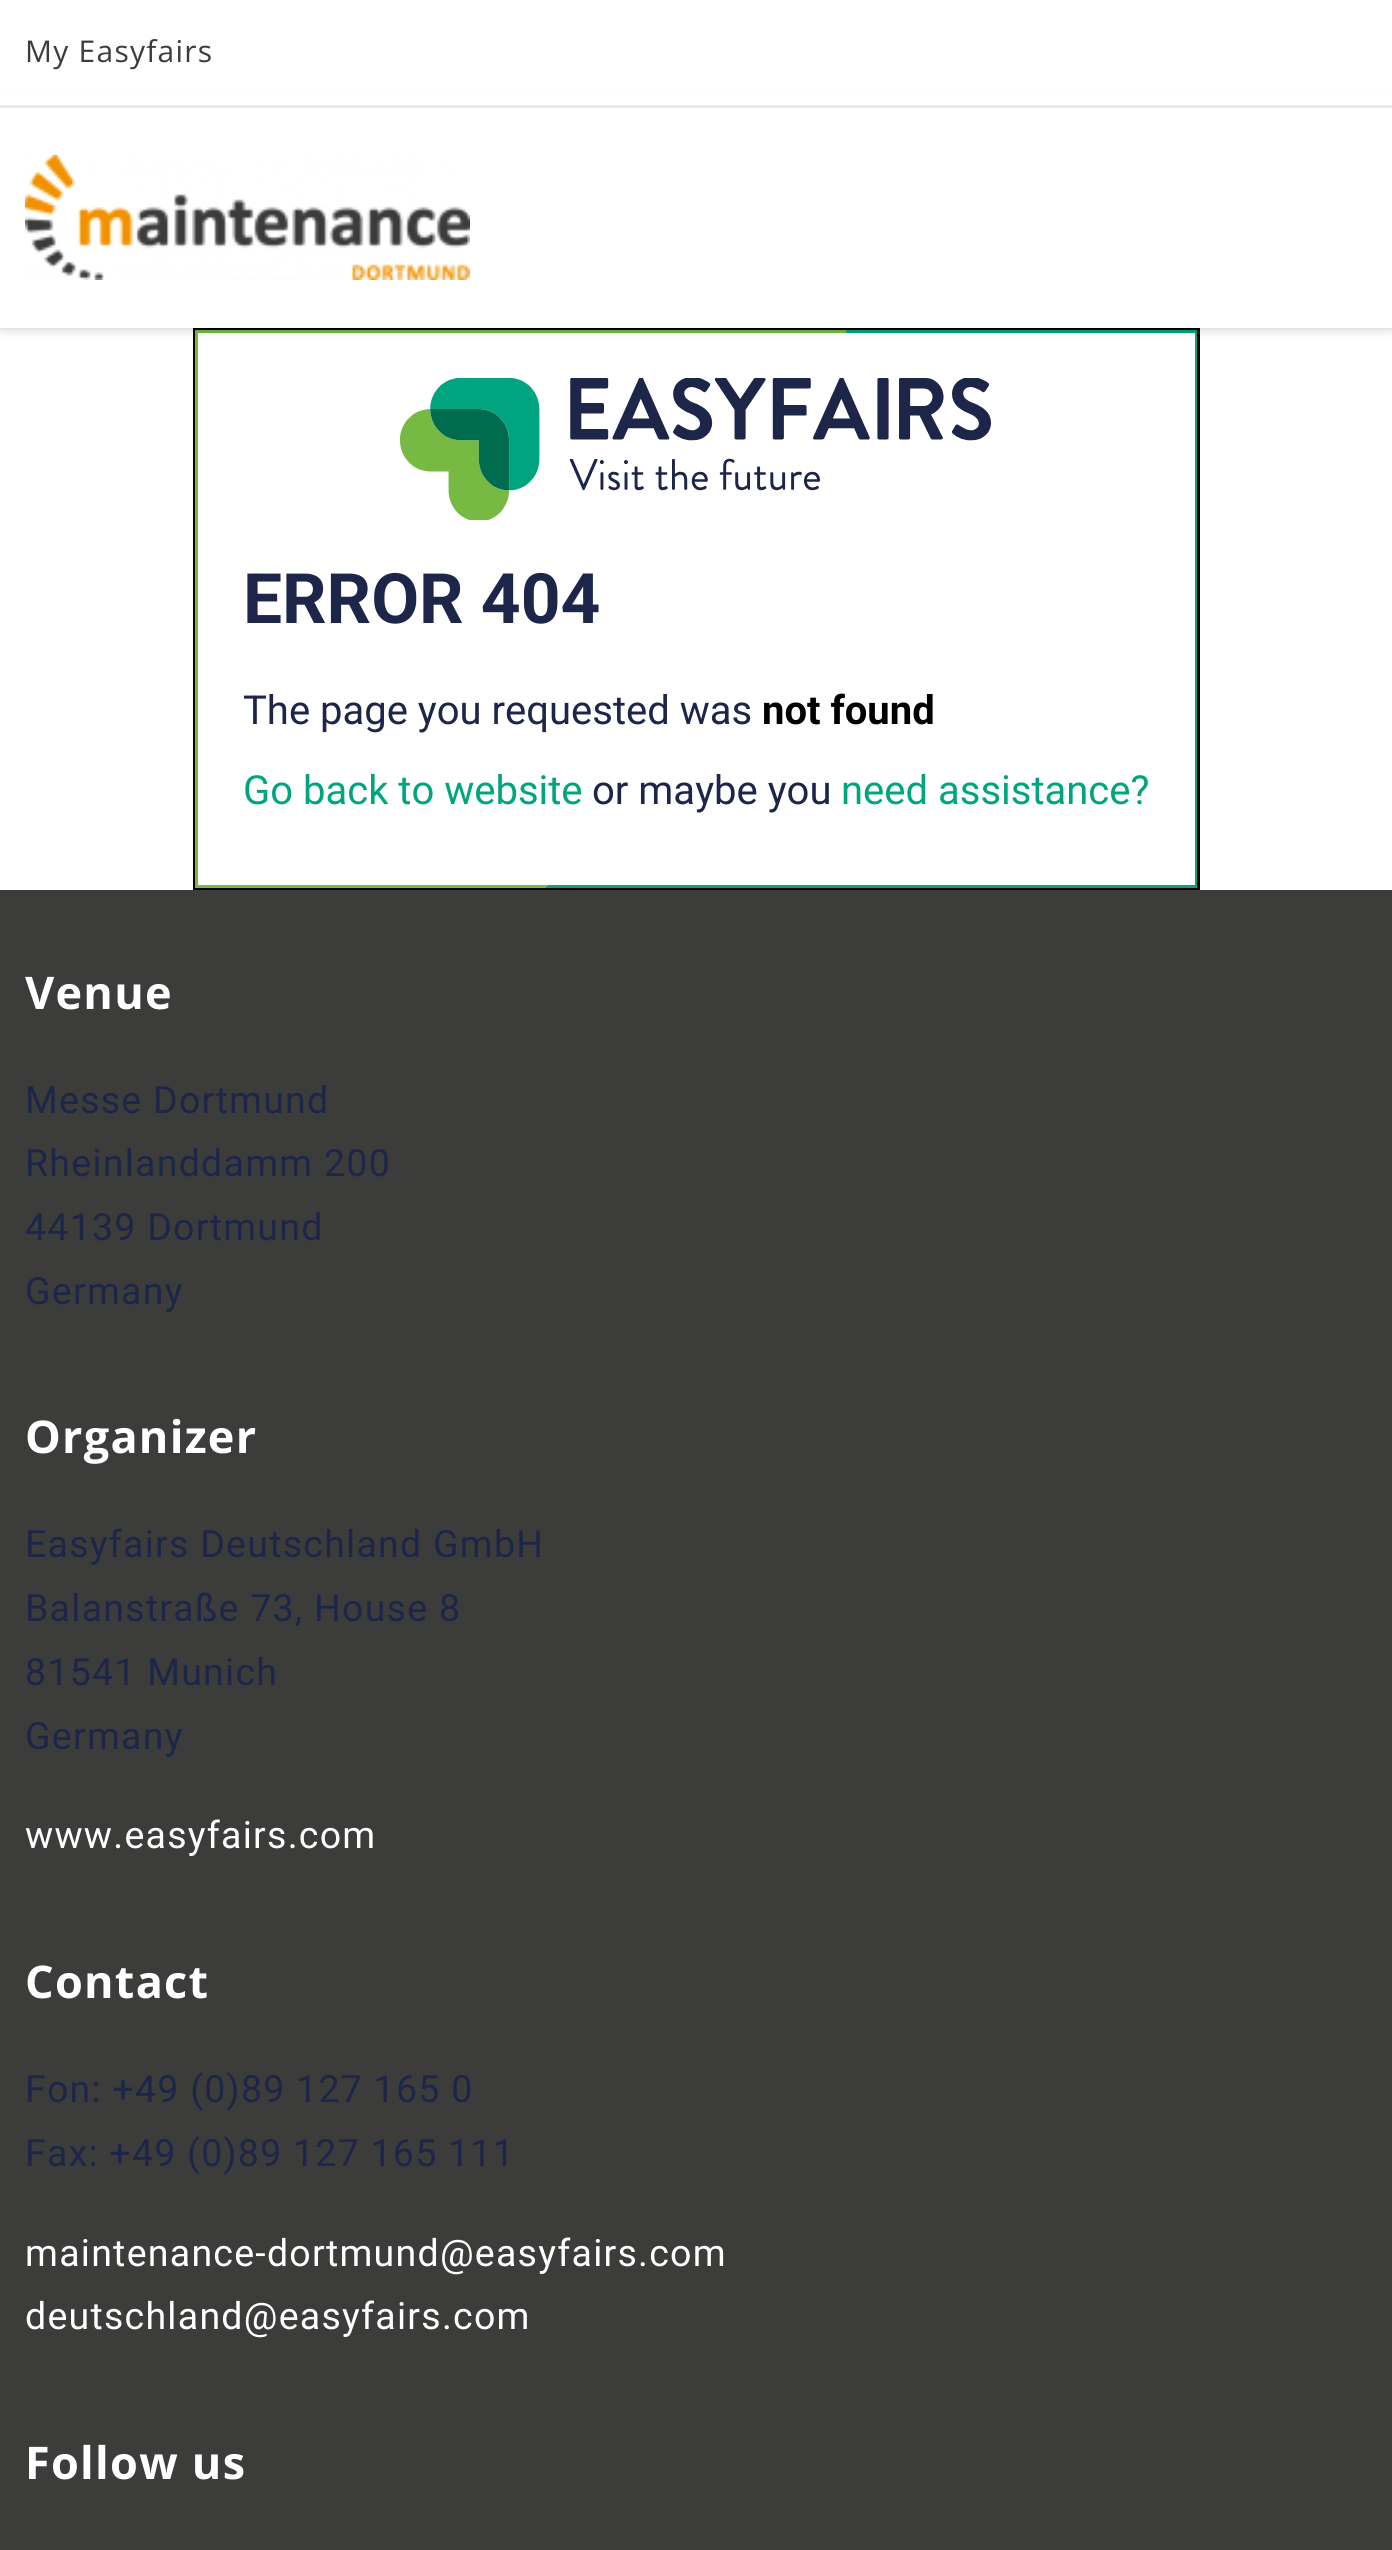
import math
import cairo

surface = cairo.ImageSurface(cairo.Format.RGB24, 1392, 2550)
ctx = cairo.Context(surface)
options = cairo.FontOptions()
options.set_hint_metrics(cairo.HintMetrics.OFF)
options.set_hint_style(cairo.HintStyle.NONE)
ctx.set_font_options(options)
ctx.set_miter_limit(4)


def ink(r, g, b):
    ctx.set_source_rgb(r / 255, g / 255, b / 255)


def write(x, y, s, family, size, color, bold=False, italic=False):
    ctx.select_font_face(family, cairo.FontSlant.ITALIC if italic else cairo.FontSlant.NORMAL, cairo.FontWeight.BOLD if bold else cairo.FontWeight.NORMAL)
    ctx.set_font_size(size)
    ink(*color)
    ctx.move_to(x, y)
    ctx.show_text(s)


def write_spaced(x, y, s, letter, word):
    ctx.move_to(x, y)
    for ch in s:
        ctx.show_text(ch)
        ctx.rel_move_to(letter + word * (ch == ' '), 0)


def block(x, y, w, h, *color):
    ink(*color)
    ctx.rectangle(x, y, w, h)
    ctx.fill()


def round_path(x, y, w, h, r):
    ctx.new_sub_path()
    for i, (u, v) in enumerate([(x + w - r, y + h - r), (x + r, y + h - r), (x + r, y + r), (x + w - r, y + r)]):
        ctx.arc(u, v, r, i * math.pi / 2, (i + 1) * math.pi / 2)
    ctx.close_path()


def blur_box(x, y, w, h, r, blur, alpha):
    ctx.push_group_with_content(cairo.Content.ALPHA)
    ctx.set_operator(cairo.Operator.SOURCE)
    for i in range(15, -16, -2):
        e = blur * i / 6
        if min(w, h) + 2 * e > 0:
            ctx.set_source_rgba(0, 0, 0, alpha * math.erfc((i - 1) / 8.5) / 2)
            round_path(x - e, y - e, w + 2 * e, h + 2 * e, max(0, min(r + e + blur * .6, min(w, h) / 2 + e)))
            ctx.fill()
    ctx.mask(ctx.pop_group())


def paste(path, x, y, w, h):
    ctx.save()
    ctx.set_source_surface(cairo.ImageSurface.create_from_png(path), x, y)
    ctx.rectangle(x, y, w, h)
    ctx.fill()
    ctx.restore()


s1 = dict(family="Roboto", size=69.5, color=(29, 38, 73), bold=True)
s2 = dict(family="Roboto", size=40, color=(29, 38, 73))
s3 = dict(family="Roboto", size=40, color=(0, 0, 0), bold=True)
s4 = dict(family="Roboto", size=40, color=(0, 165, 127))

ink(255, 255, 255)
ctx.paint()
paste("pic2.png", 400, 378, 591, 142)
ctx.rectangle(194.5, 329.5, 1004, 559)
ink(0, 0, 0)
ctx.set_line_width(3)
ctx.stroke()
ink(118, 186, 67)
ctx.new_path()
ctx.move_to(198, 333)
ctx.line_to(198, 885)
ctx.line_to(548, 885)
ctx.line_to(546, 888)
ctx.line_to(195, 888)
ctx.line_to(195, 330)
ctx.line_to(847, 330)
ctx.line_to(845, 333)
ctx.close_path()
ctx.fill()
ink(0, 165, 127)
ctx.new_path()
ctx.move_to(847, 330)
ctx.line_to(1197, 330)
ctx.line_to(1197, 888)
ctx.line_to(546, 888)
ctx.line_to(548, 885)
ctx.line_to(1195, 885)
ctx.line_to(1195, 333)
ctx.line_to(845, 333)
ctx.close_path()
ctx.fill()
ink(0, 0, 0)
blur_box(0, 105, 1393, 223, 0, 6, 0.23)
block(0, 95, 1392, 10, 255, 255, 255)
ctx.select_font_face("Open Sans")
ctx.set_font_size(30)
ink(60, 60, 59)
write_spaced(25, 62, "My Easyfairs", 1.25, 0)
block(0, 108, 1392, 220, 255, 255, 255)
block(0, 105, 1392, 3, 236, 232, 232)
paste("pic1.png", 25, 155, 445, 125)
write(243, 623, "ERROR 404", **s1)
write(243, 724, "The page you requested was", **s2)
write(762, 724, "not found", **s3)
write(243, 804, "Go back to website", **s4)
write(592, 804, "or maybe you", **s2)
write(841, 804, "need assistance?", **s4)
block(0, 890, 1392, 1660, 60, 60, 59)
ctx.select_font_face("Open Sans", cairo.FontSlant.NORMAL, cairo.FontWeight.BOLD)
ctx.set_font_size(45)
ink(255, 255, 255)
write_spaced(25, 1009, "Venue", 1.25, 0)
ctx.select_font_face("Roboto")
ctx.set_font_size(37.5)
ink(29, 38, 73)
write_spaced(25, 1113, "Messe Dortmund", 1.25, 0)
write_spaced(25, 1176, "Rheinlanddamm 200", 1.25, 0)
write_spaced(25, 1240, "44139 Dortmund", 1.25, 0)
write_spaced(25, 1304, "Germany", 1.25, 0)
ctx.select_font_face("Open Sans", cairo.FontSlant.NORMAL, cairo.FontWeight.BOLD)
ctx.set_font_size(45)
ink(255, 255, 255)
write_spaced(25, 1453, "Organizer", 1.25, 0)
ctx.select_font_face("Roboto")
ctx.set_font_size(37.5)
ink(29, 38, 73)
write_spaced(25, 1557, "Easyfairs Deutschland GmbH", 1.25, 0)
write_spaced(25, 1621, "Balanstraße 73, House 8", 1.25, 0)
write_spaced(25, 1685, "81541 Munich", 1.25, 0)
write_spaced(25, 1749, "Germany", 1.25, 0)
ink(255, 255, 255)
write_spaced(25, 1848, "www.easyfairs.com", 1.25, 0)
ctx.select_font_face("Open Sans", cairo.FontSlant.NORMAL, cairo.FontWeight.BOLD)
ctx.set_font_size(45)
write_spaced(25, 1998, "Contact", 1.25, 0)
ctx.select_font_face("Roboto")
ctx.set_font_size(37.5)
ink(29, 38, 73)
write_spaced(25, 2102, "Fon: +49 (0)89 127 165 0", 1.25, 0)
write_spaced(25, 2166, "Fax: +49 (0)89 127 165 111", 1.25, 0)
ink(255, 255, 255)
write_spaced(25, 2266, "maintenance-dortmund@easyfairs.com", 1.25, 0)
write_spaced(25, 2329, "deutschland@easyfairs.com", 1.25, 0)
ctx.select_font_face("Open Sans", cairo.FontSlant.NORMAL, cairo.FontWeight.BOLD)
ctx.set_font_size(45)
write_spaced(25, 2479, "Follow us", 1.25, 0)
surface.write_to_png("screenshot.png")
